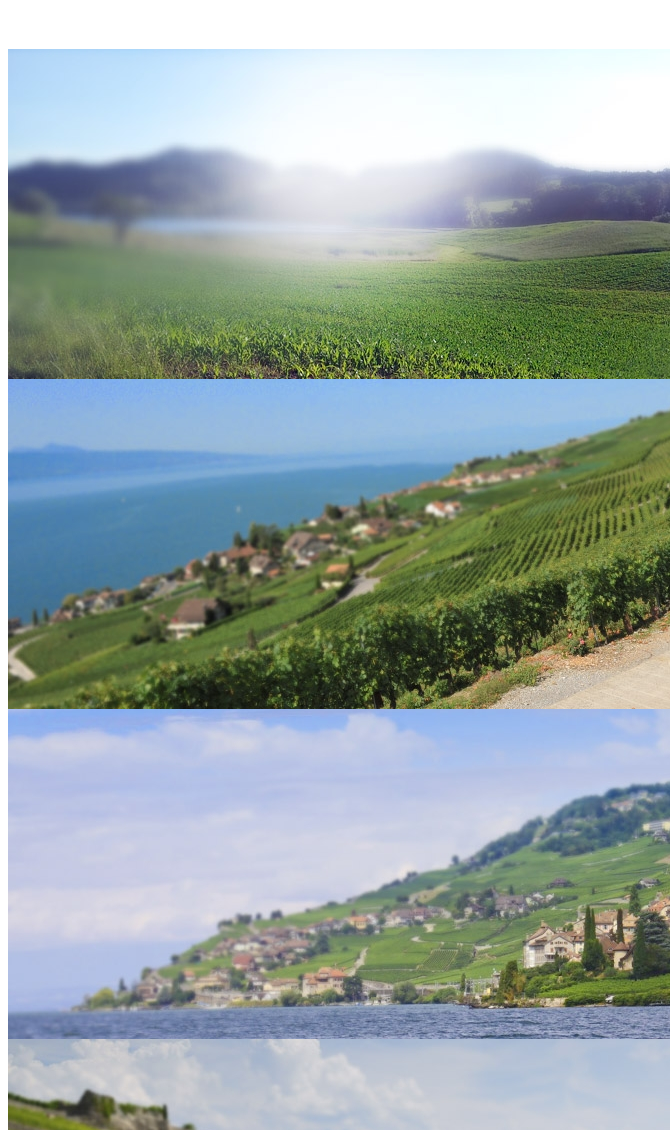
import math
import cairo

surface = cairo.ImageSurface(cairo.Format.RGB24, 670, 1130)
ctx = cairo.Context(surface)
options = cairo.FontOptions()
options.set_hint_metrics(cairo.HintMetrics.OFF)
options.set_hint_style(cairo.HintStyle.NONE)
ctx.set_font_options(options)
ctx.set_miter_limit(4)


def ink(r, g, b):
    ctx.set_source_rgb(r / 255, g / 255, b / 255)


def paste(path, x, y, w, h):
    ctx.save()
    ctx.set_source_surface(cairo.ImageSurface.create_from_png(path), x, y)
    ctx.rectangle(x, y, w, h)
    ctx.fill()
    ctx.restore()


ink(255, 255, 255)
ctx.paint()
paste("pic1.png", 8, 49, 662, 330)
paste("pic2.png", 8, 379, 662, 330)
paste("pic3.png", 8, 709, 662, 330)
paste("pic4.png", 8, 1039, 662, 91)
surface.write_to_png("screenshot.png")
